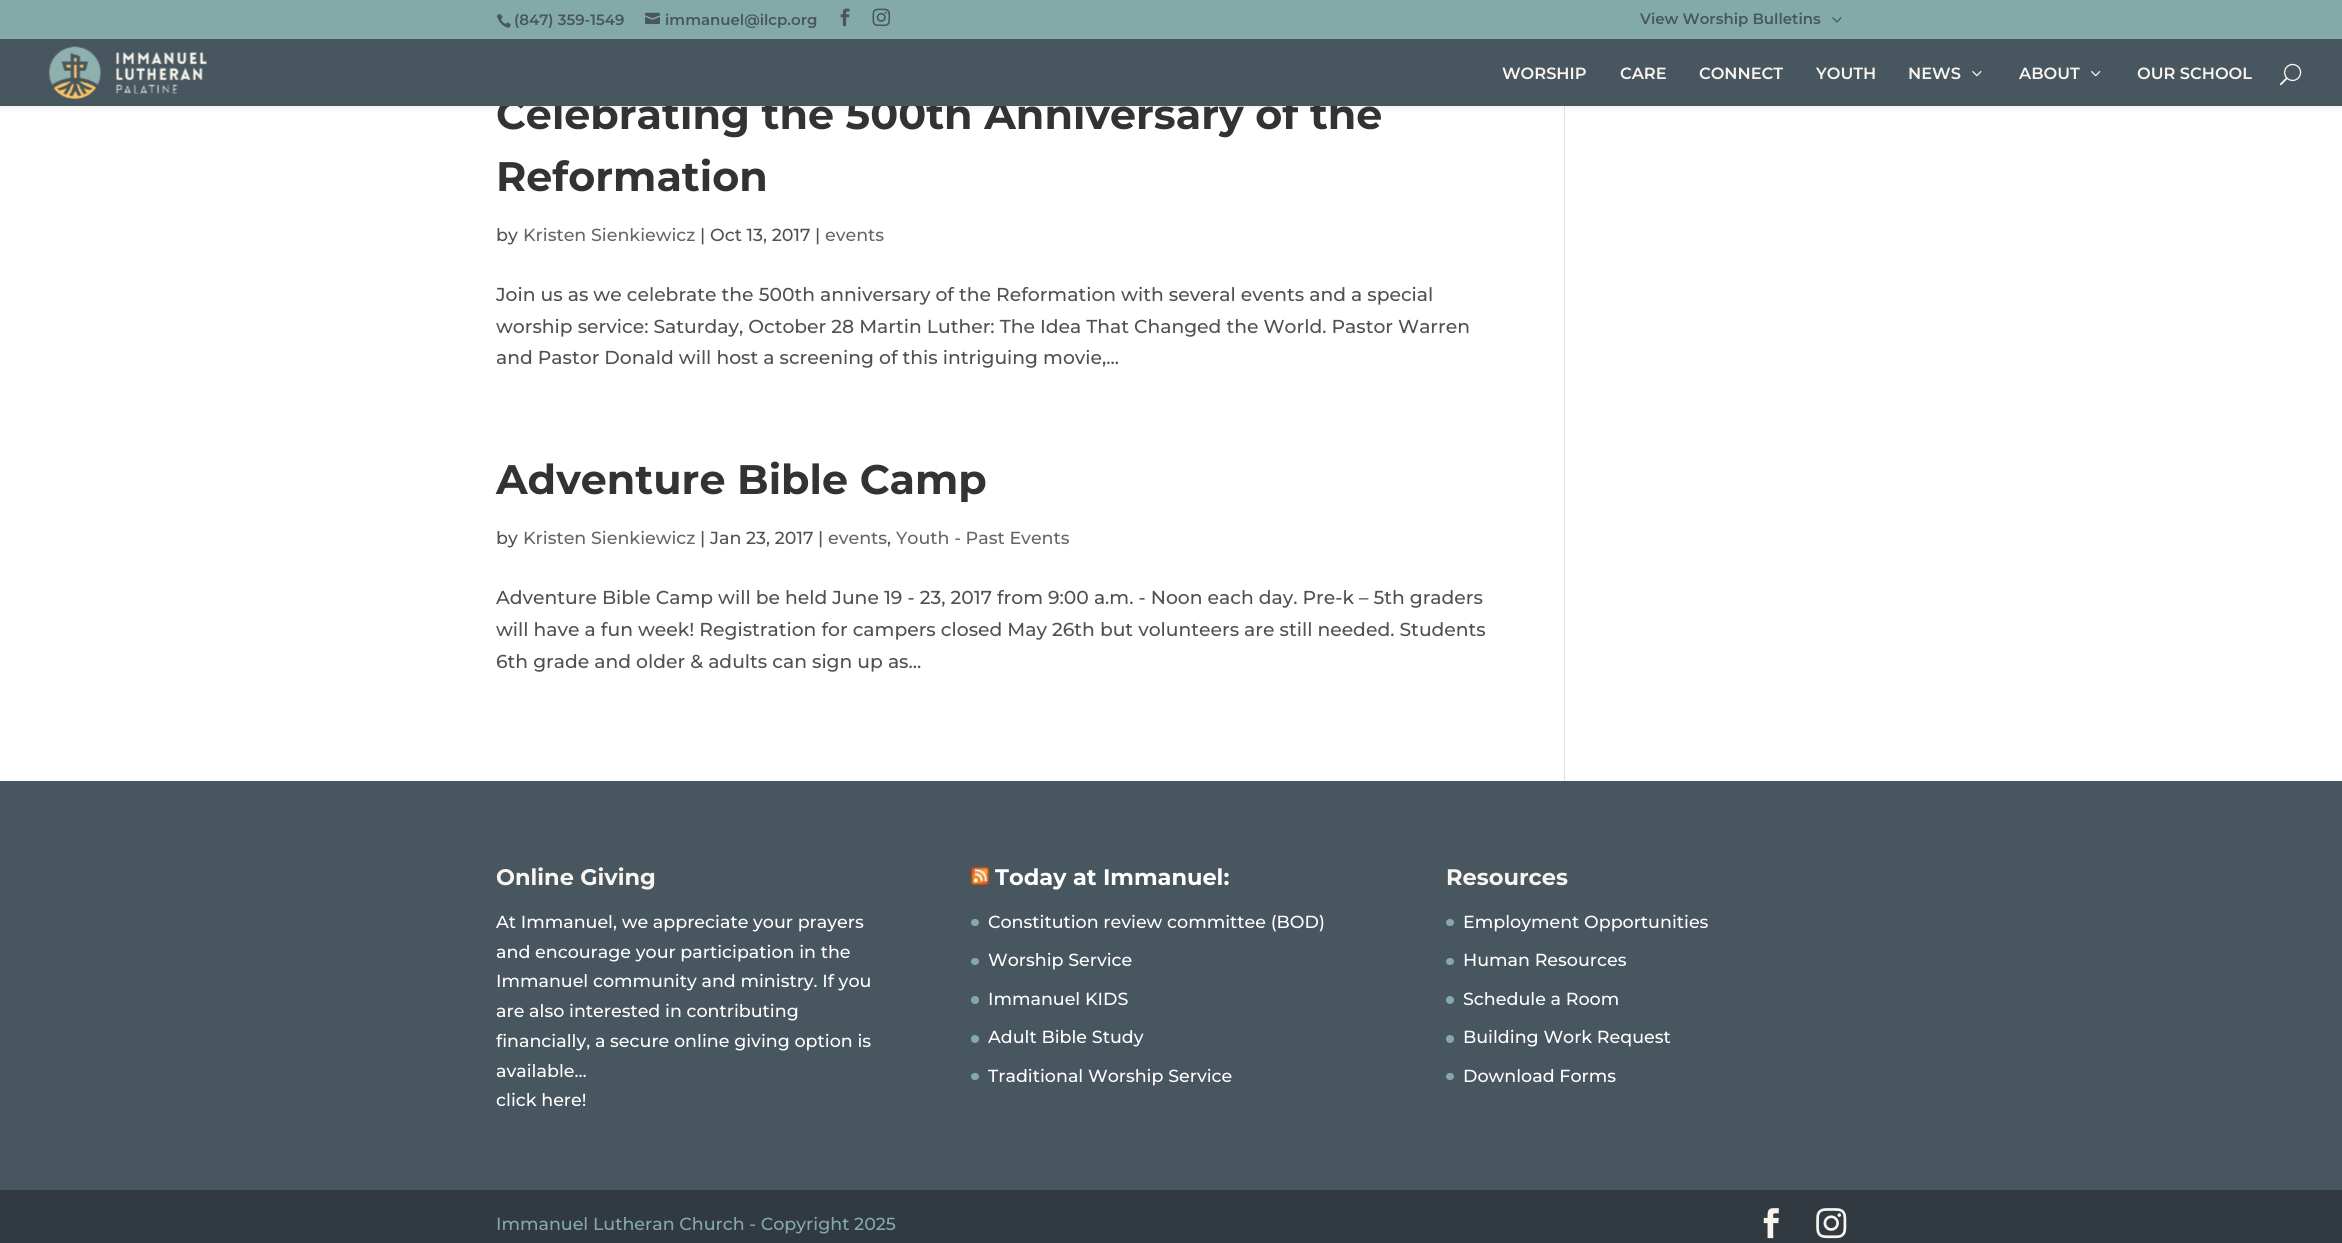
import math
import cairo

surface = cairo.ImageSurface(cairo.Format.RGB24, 2342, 1243)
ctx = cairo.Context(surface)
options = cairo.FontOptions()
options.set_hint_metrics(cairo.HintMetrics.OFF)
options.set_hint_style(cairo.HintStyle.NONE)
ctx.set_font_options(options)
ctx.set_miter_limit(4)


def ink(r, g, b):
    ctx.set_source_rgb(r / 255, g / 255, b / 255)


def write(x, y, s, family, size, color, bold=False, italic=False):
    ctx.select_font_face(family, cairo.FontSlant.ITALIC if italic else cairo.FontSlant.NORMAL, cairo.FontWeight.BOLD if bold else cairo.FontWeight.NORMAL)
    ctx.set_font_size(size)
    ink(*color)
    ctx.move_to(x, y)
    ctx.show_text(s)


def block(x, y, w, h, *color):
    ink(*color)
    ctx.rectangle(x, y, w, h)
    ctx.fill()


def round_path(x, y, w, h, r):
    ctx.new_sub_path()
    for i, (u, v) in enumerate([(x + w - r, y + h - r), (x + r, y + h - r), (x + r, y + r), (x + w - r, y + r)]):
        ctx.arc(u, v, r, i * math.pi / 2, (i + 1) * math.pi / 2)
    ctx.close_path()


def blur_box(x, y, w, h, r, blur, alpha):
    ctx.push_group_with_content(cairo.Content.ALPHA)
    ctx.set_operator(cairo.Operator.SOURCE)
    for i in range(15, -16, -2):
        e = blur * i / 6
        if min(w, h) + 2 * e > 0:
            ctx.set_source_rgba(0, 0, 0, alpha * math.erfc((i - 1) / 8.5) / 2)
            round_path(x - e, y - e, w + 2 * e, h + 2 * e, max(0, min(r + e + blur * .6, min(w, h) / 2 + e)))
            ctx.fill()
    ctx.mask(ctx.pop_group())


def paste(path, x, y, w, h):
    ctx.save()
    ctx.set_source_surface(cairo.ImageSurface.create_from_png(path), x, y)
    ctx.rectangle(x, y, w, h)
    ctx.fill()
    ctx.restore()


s1 = dict(family="Montserrat SemiBold", size=15, color=(72, 86, 96))
s2 = dict(family="Montserrat", size=41.25, color=(51, 51, 51), bold=True)
s3 = dict(family="Montserrat SemiBold", size=16.25, color=(249, 245, 238))
s4 = dict(family="Montserrat Medium", size=17.5, color=(81, 81, 81))
s5 = dict(family="Montserrat Medium", size=17.5, color=(102, 102, 102))
s6 = dict(family="Montserrat Medium", size=18.75, color=(81, 81, 81))
s7 = dict(family="Montserrat", size=22.5, color=(249, 245, 238), bold=True)
s8 = dict(family="Montserrat Medium", size=17.5, color=(255, 255, 255))
s9 = dict(family="Montserrat", size=22.5, color=(255, 255, 255), bold=True)
s10 = dict(family="Montserrat Medium", size=17.5, color=(132, 170, 167))

ink(255, 255, 255)
ctx.paint()
block(1564, 106, 1, 675, 226, 226, 226)
ink(0, 0, 0)
blur_box(0, 39, 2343, 67, 0, 4.5, 0.1)
block(0, 0, 2342, 39, 132, 170, 167)
paste("pic1.png", 497, 14, 14, 14)
write(514, 25, "(847) 359-1549", **s1)
paste("pic2.png", 645, 12, 15, 13)
write(665, 25, "immanuel@ilcp.org", **s1)
paste("pic3.png", 840, 8, 10, 19)
paste("pic4.png", 872, 8, 18, 19)
write(1640, 24, "View Worship Bulletins", **s1)
paste("pic5.png", 1832, 17, 10, 6)
write(496, 129, "Celebrating the 500th Anniversary of the", **s2)
block(0, 39, 2342, 67, 72, 86, 96)
paste("pic6.png", 48, 46, 159, 53)
write(1502, 79, "WORSHIP", **s3)
write(1620, 79, "CARE", **s3)
write(1699, 79, "CONNECT", **s3)
write(1816, 79, "YOUTH", **s3)
write(1908, 79, "NEWS", **s3)
paste("pic7.png", 1972, 71, 10, 6)
write(2019, 79, "ABOUT", **s3)
paste("pic8.png", 2091, 71, 10, 6)
write(2137, 79, "OUR SCHOOL", **s3)
paste("pic9.png", 2280, 63, 22, 23)
write(496, 191, "Reformation", **s2)
write(496, 241, "by", **s4)
write(523, 241, "Kristen Sienkiewicz", **s5)
write(700, 241, "| Oct 13, 2017 |", **s4)
write(825, 241, "events", **s5)
write(496, 301, "Join us as we celebrate the 500th anniversary of the Reformation with several events and a special", **s6)
write(496, 333, "worship service: Saturday, October 28 Martin Luther: The Idea That Changed the World. Pastor Warren", **s6)
write(496, 364, "and Pastor Donald will host a screening of this intriguing movie,...", **s6)
write(496, 494, "Adventure Bible Camp", **s2)
write(496, 544, "by", **s4)
write(523, 544, "Kristen Sienkiewicz", **s5)
write(700, 544, "| Jan 23, 2017 |", **s4)
write(828, 544, "events", **s5)
write(887, 544, ",", **s4)
write(896, 544, "Youth - Past Events", **s5)
write(496, 604, "Adventure Bible Camp will be held June 19 - 23, 2017 from 9:00 a.m. - Noon each day. Pre-k – 5th graders", **s6)
write(496, 636, "will have a fun week! Registration for campers closed May 26th but volunteers are still needed. Students", **s6)
write(496, 668, "6th grade and older & adults can sign up as...", **s6)
block(0, 781, 2342, 409, 72, 86, 96)
write(496, 885, "Online Giving", **s7)
write(496, 928, "At Immanuel, we appreciate your prayers", **s8)
write(496, 958, "and encourage your participation in the", **s8)
write(496, 987, "Immanuel community and ministry. If you", **s8)
write(496, 1017, "are also interested in contributing", **s8)
write(496, 1047, "financially, a secure online giving option is", **s8)
write(496, 1077, "available…", **s8)
write(496, 1106, "click here!", **s8)
paste("pic10.png", 971, 867, 18, 18)
write(995, 885, "Today at Immanuel:", **s9)
ink(132, 170, 167)
round_path(971, 919, 8, 7, 3.5)
ctx.fill()
write(988, 928, "Constitution review committee (BOD)", **s8)
ink(132, 170, 167)
round_path(971, 958, 8, 7, 3.5)
ctx.fill()
write(988, 966, "Worship Service", **s8)
ink(132, 170, 167)
ctx.new_path()
ctx.arc(975, 1000, 4, 0, 2 * math.pi)
ctx.fill()
write(988, 1005, "Immanuel KIDS", **s8)
ink(132, 170, 167)
ctx.new_path()
ctx.arc(975, 1039, 4, 0, 2 * math.pi)
ctx.fill()
write(988, 1043, "Adult Bible Study", **s8)
ink(132, 170, 167)
round_path(971, 1073, 8, 7, 3.5)
ctx.fill()
write(988, 1082, "Traditional Worship Service", **s8)
write(1446, 885, "Resources", **s7)
ink(132, 170, 167)
round_path(1446, 919, 8, 7, 3.5)
ctx.fill()
write(1463, 928, "Employment Opportunities", **s8)
ink(132, 170, 167)
round_path(1446, 958, 8, 7, 3.5)
ctx.fill()
write(1463, 966, "Human Resources", **s8)
ink(132, 170, 167)
ctx.new_path()
ctx.arc(1450, 1000, 4, 0, 2 * math.pi)
ctx.fill()
write(1463, 1005, "Schedule a Room", **s8)
ink(132, 170, 167)
ctx.new_path()
ctx.arc(1450, 1039, 4, 0, 2 * math.pi)
ctx.fill()
write(1463, 1043, "Building Work Request", **s8)
ink(132, 170, 167)
round_path(1446, 1073, 8, 7, 3.5)
ctx.fill()
write(1463, 1082, "Download Forms", **s8)
block(0, 1190, 2342, 53, 49, 58, 65)
write(496, 1230, "Immanuel Lutheran Church - Copyright 2025", **s10)
paste("pic11.png", 1763, 1208, 16, 31)
paste("pic12.png", 1816, 1208, 31, 31)
surface.write_to_png("screenshot.png")
